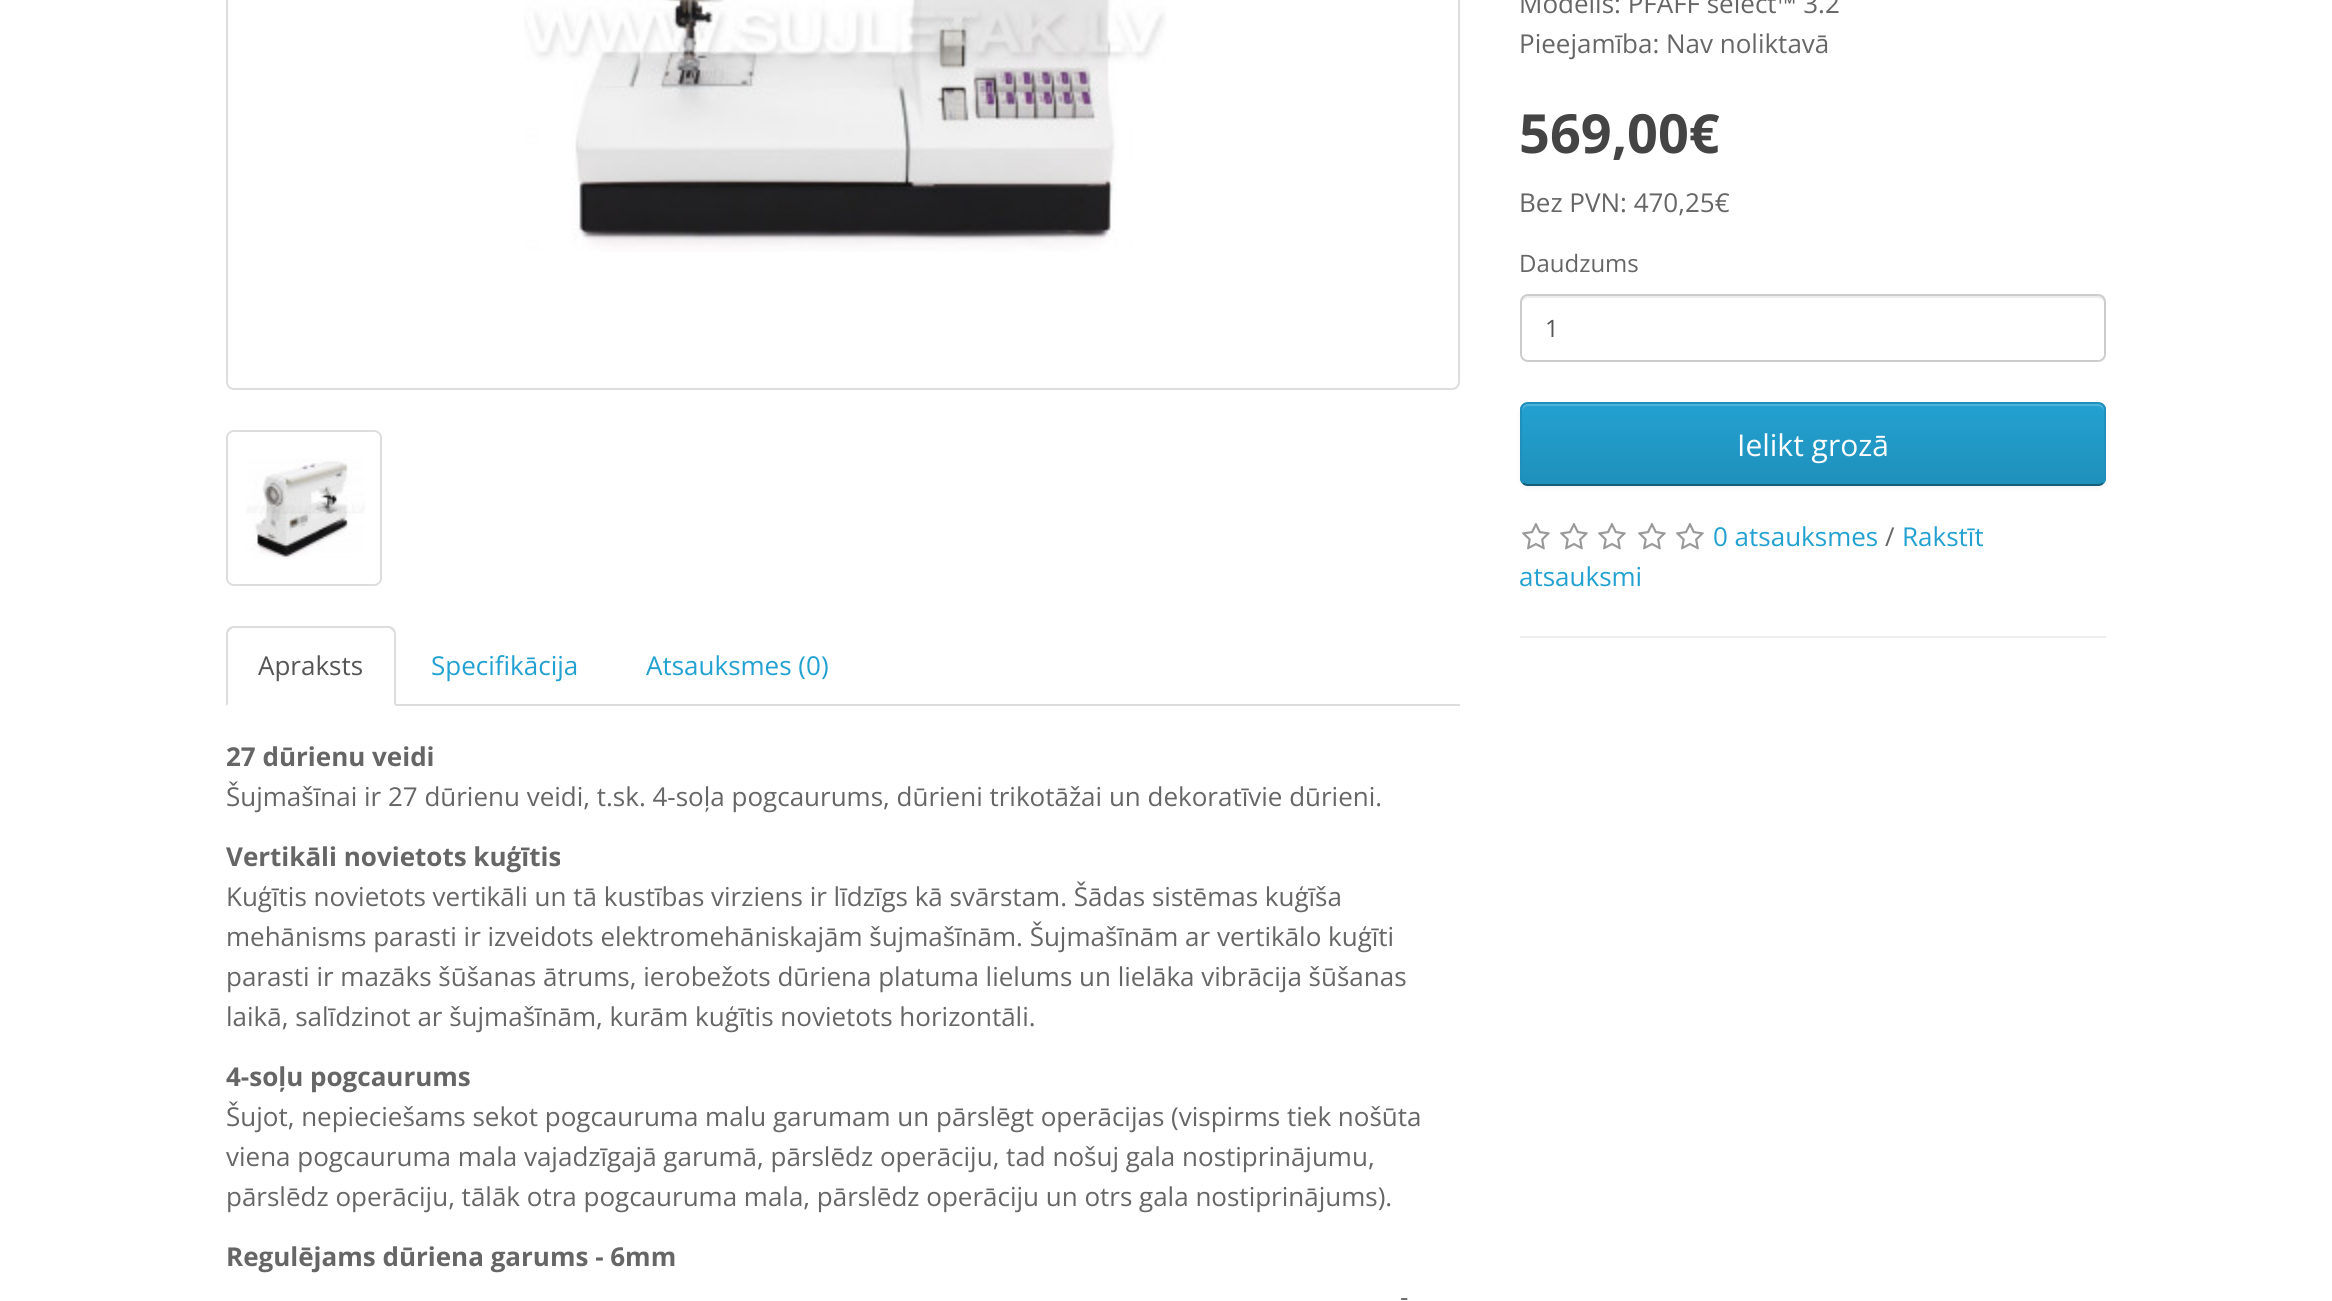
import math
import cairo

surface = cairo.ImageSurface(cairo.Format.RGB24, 2332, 1301)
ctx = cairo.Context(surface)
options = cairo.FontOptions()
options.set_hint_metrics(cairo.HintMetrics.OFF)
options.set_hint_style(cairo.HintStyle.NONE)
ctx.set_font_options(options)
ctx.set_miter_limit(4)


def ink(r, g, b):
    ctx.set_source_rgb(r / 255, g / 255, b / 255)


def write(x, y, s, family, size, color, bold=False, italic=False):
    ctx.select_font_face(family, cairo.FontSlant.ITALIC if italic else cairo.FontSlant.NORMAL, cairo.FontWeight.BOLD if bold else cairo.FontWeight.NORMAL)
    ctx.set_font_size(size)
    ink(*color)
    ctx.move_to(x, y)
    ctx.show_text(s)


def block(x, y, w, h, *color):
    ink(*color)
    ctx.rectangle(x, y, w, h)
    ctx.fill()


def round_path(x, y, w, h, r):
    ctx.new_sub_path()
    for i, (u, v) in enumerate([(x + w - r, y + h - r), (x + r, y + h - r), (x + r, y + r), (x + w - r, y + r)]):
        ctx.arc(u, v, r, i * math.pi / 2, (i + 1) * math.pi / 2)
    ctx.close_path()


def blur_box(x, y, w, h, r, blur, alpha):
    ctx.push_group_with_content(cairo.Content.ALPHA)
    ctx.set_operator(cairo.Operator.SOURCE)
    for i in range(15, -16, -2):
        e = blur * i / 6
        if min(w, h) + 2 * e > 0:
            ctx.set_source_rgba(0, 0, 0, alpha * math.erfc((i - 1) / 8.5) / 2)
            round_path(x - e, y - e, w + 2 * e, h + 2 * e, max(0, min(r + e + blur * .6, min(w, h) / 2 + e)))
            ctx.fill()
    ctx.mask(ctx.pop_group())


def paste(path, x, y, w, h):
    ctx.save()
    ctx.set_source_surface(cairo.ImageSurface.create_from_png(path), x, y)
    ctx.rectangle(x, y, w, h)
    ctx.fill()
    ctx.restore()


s1 = dict(family="Open Sans", size=26, color=(102, 102, 102))
s2 = dict(family="Open Sans", size=54, color=(68, 68, 68), bold=True)
s3 = dict(family="Open Sans", size=24, color=(102, 102, 102))
s4 = dict(family="Open Sans", size=24, color=(85, 85, 85))
s5 = dict(family="Open Sans", size=30, color=(255, 255, 255))
s6 = dict(family="Open Sans", size=26, color=(35, 161, 209))
s7 = dict(family="Open Sans", size=26, color=(85, 85, 85))
s8 = dict(family="Open Sans", size=26, color=(102, 102, 102), bold=True)

ink(255, 255, 255)
ctx.paint()
write(1519, 13, "Modelis: PFAFF select™ 3.2", **s1)
write(1519, 53, "Pieejamība: Nav noliktavā", **s1)
write(1519, 153, "569,00€", **s2)
write(1519, 212, "Bez PVN: 470,25€", **s1)
write(1519, 272, "Daudzums", **s3)
ink(236, 236, 236)
ctx.new_path()
ctx.move_to(1528, 298)
ctx.line_to(2098, 298)
ctx.curve_to(2101, 298, 2104, 301, 2104, 304)
ctx.curve_to(2104, 300, 2103, 296, 2098, 296)
ctx.line_to(1528, 296)
ctx.curve_to(1523, 296, 1522, 300, 1522, 304)
ctx.curve_to(1522, 301, 1525, 298, 1528, 298)
ctx.close_path()
ctx.fill()
round_path(1521, 295, 584, 66, 7)
ink(204, 204, 204)
ctx.stroke()
write(1545, 337, "1", **s4)
ink(0, 0, 0)
blur_box(1520, 404, 586, 84, 8, 2, 0.05)
ctx.save()
round_path(1520, 402, 586, 84, 8)
ctx.clip()
gradient = cairo.LinearGradient(1813, 404, 1813, 484)
gradient.add_color_stop_rgba(0, 0.137, 0.631, 0.82, 1)
gradient.add_color_stop_rgba(1, 0.122, 0.565, 0.733, 1)
ctx.set_source(gradient)
ctx.rectangle(1520, 404, 586, 80)
ctx.fill()
ctx.restore()
ink(79, 180, 218)
ctx.new_path()
ctx.move_to(1528, 406)
ctx.line_to(2098, 406)
ctx.curve_to(2101, 406, 2104, 409, 2104, 412)
ctx.curve_to(2104, 408, 2103, 404, 2098, 404)
ctx.line_to(1528, 404)
ctx.curve_to(1523, 404, 1522, 408, 1522, 412)
ctx.curve_to(1522, 409, 1525, 406, 1528, 406)
ctx.close_path()
ctx.fill()
ctx.new_path()
ctx.move_to(2103, 483)
ctx.curve_to(2101.5, 484.5, 2100, 485, 2098, 485)
ctx.line_to(1528, 485)
ctx.curve_to(1526, 485, 1524.5, 484.5, 1523, 483)
ink(20, 94, 122)
ctx.stroke()
ctx.new_path()
ctx.move_to(1523, 483)
ctx.curve_to(1521.5, 481.5, 1521, 480, 1521, 478)
ctx.line_to(1521, 410)
ctx.curve_to(1521, 408, 1521.5, 406.5, 1523, 405)
ctx.curve_to(1524.5, 403.5, 1526, 403, 1528, 403)
ctx.line_to(2098, 403)
ctx.curve_to(2100, 403, 2101.5, 403.5, 2103, 405)
ctx.curve_to(2104.5, 406.5, 2105, 408, 2105, 410)
ctx.line_to(2105, 478)
ctx.curve_to(2105, 480, 2104.5, 481.5, 2103, 483)
ink(31, 144, 187)
ctx.stroke()
write(1737, 456, "Ielikt grozā", **s5)
paste("pic1.png", 1522, 522, 28, 28)
paste("pic1.png", 1560, 522, 28, 28)
paste("pic1.png", 1598, 522, 28, 28)
paste("pic1.png", 1638, 522, 28, 28)
paste("pic1.png", 1676, 522, 28, 28)
write(1713, 546, "0 atsauksmes", **s6)
write(1885, 546, "/", **s1)
write(1902, 546, "Rakstīt", **s6)
write(1519, 586, "atsauksmi", **s6)
block(1520, 636, 586, 2, 238, 238, 238)
round_path(227, -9, 1232, 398, 7)
ink(221, 221, 221)
ctx.stroke()
paste("pic2.png", 524, 0, 643, 252)
round_path(227, 431, 154, 154, 7)
ctx.stroke()
paste("pic3.png", 246, 458, 119, 101)
block(396, 704, 1064, 2, 221, 221, 221)
ctx.new_path()
ctx.move_to(234, 626)
ctx.curve_to(232, 626, 230, 627, 228, 628)
ctx.line_to(230, 630)
ctx.line_to(233, 628)
ctx.line_to(389, 628)
ctx.line_to(392, 630)
ctx.line_to(394, 628)
ctx.curve_to(392, 627, 390, 626, 388, 626)
ctx.close_path()
ctx.fill()
ctx.new_path()
ctx.move_to(396, 706)
ctx.line_to(396, 634)
ctx.curve_to(396, 632, 395, 630, 394, 628)
ctx.line_to(392, 630)
ctx.line_to(394, 633)
ctx.line_to(394, 704)
ctx.close_path()
ctx.fill()
ctx.new_path()
ctx.move_to(226, 706)
ctx.line_to(228, 704)
ctx.line_to(228, 633)
ctx.line_to(230, 630)
ctx.line_to(228, 628)
ctx.curve_to(227, 630, 226, 632, 226, 634)
ctx.close_path()
ctx.fill()
write(258, 675, "Apraksts", **s7)
write(431, 675, "Specifikācija", **s6)
write(646, 675, "Atsauksmes (0)", **s6)
write(226, 766, "27 dūrienu veidi", **s8)
write(226, 806, "Šujmašīnai ir 27 dūrienu veidi, t.sk. 4-soļa pogcaurums, dūrieni trikotāžai un dekoratīvie dūrieni.", **s1)
write(226, 866, "Vertikāli novietots kuģītis", **s8)
write(226, 906, "Kuģītis novietots vertikāli un tā kustības virziens ir līdzīgs kā svārstam. Šādas sistēmas kuģīša", **s1)
write(226, 946, "mehānisms parasti ir izveidots elektromehāniskajām šujmašīnām. Šujmašīnām ar vertikālo kuģīti", **s1)
write(226, 986, "parasti ir mazāks šūšanas ātrums, ierobežots dūriena platuma lielums un lielāka vibrācija šūšanas", **s1)
write(226, 1026, "laikā, salīdzinot ar šujmašīnām, kurām kuģītis novietots horizontāli.", **s1)
write(226, 1086, "4-soļu pogcaurums", **s8)
write(226, 1126, "Šujot, nepieciešams sekot pogcauruma malu garumam un pārslēgt operācijas (vispirms tiek nošūta", **s1)
write(226, 1166, "viena pogcauruma mala vajadzīgajā garumā, pārslēdz operāciju, tad nošuj gala nostiprinājumu,", **s1)
write(226, 1206, "pārslēdz operāciju, tālāk otra pogcauruma mala, pārslēdz operāciju un otrs gala nostiprinājums).", **s1)
write(226, 1266, "Regulējams dūriena garums - 6mm", **s8)
write(1400, 1306, "-", **s1)
surface.write_to_png("screenshot.png")
